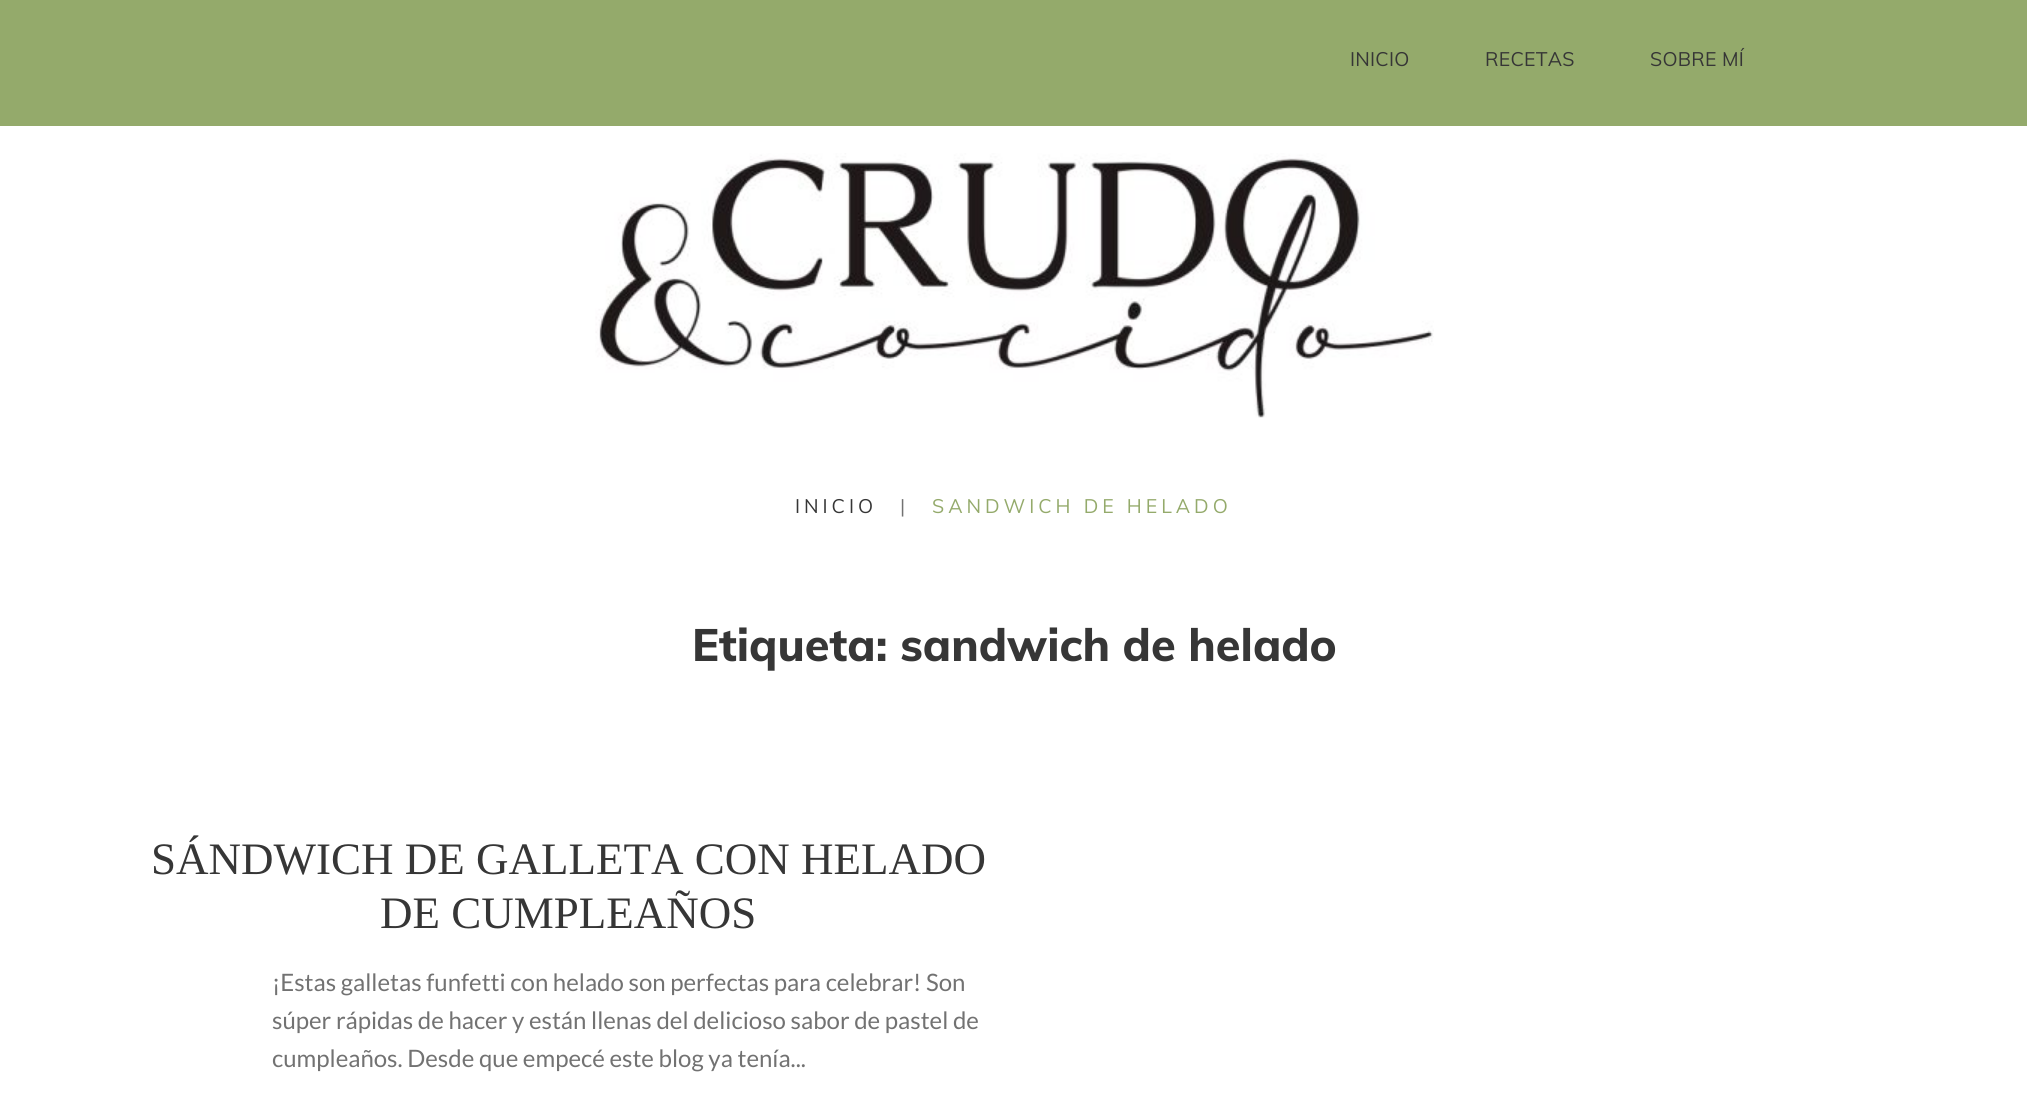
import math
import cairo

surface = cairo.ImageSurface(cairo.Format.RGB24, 2027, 1118)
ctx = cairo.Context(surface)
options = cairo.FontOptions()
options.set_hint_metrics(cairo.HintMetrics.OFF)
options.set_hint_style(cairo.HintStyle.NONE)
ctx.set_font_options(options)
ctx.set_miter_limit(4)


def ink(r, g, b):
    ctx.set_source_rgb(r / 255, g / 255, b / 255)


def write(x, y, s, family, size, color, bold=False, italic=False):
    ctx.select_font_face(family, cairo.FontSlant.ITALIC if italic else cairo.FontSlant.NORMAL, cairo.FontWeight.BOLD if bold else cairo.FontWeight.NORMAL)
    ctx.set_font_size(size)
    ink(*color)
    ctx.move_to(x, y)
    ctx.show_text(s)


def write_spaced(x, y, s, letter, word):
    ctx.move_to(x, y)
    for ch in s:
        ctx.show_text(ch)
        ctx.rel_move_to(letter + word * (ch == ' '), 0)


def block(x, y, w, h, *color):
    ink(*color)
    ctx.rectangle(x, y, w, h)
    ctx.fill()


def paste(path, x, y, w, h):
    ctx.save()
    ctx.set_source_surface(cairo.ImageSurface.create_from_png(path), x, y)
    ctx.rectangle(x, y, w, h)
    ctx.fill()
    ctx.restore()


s1 = dict(family="Muli ExtraBold", size=45, color=(54, 54, 54))
s2 = dict(family="Liberation Serif", size=45, color=(54, 54, 54))
s3 = dict(family="Lato", size=24, color=(114, 114, 114))

ink(255, 255, 255)
ctx.paint()
block(0, 0, 2027, 126, 148, 170, 107)
ctx.select_font_face("Muli")
ctx.set_font_size(19.5)
ink(54, 54, 54)
write_spaced(1350, 66, "INICIO", 0.25, 0)
write_spaced(1485, 66, "RECETAS", 0.25, 0)
write_spaced(1650, 66, "SOBRE MÍ", 0.25, 0)
paste("pic1.png", 595, 153, 839, 265)
write_spaced(795, 513, "INICIO", 4, 0)
ink(114, 114, 114)
write_spaced(900, 513, "|", 4, 0)
ink(148, 170, 107)
write_spaced(932, 513, "SANDWICH DE HELADO", 4, 0)
write(692, 661, "Etiqueta: sandwich de helado", **s1)
write(151, 874, "SÁNDWICH DE GALLETA CON HELADO", **s2)
write(380, 928, "DE CUMPLEAÑOS", **s2)
write(272, 991, "¡Estas galletas funfetti con helado son perfectas para celebrar! Son", **s3)
write(272, 1029, "súper rápidas de hacer y están llenas del delicioso sabor de pastel de", **s3)
write(272, 1067, "cumpleaños. Desde que empecé este blog ya tenía...", **s3)
surface.write_to_png("screenshot.png")
